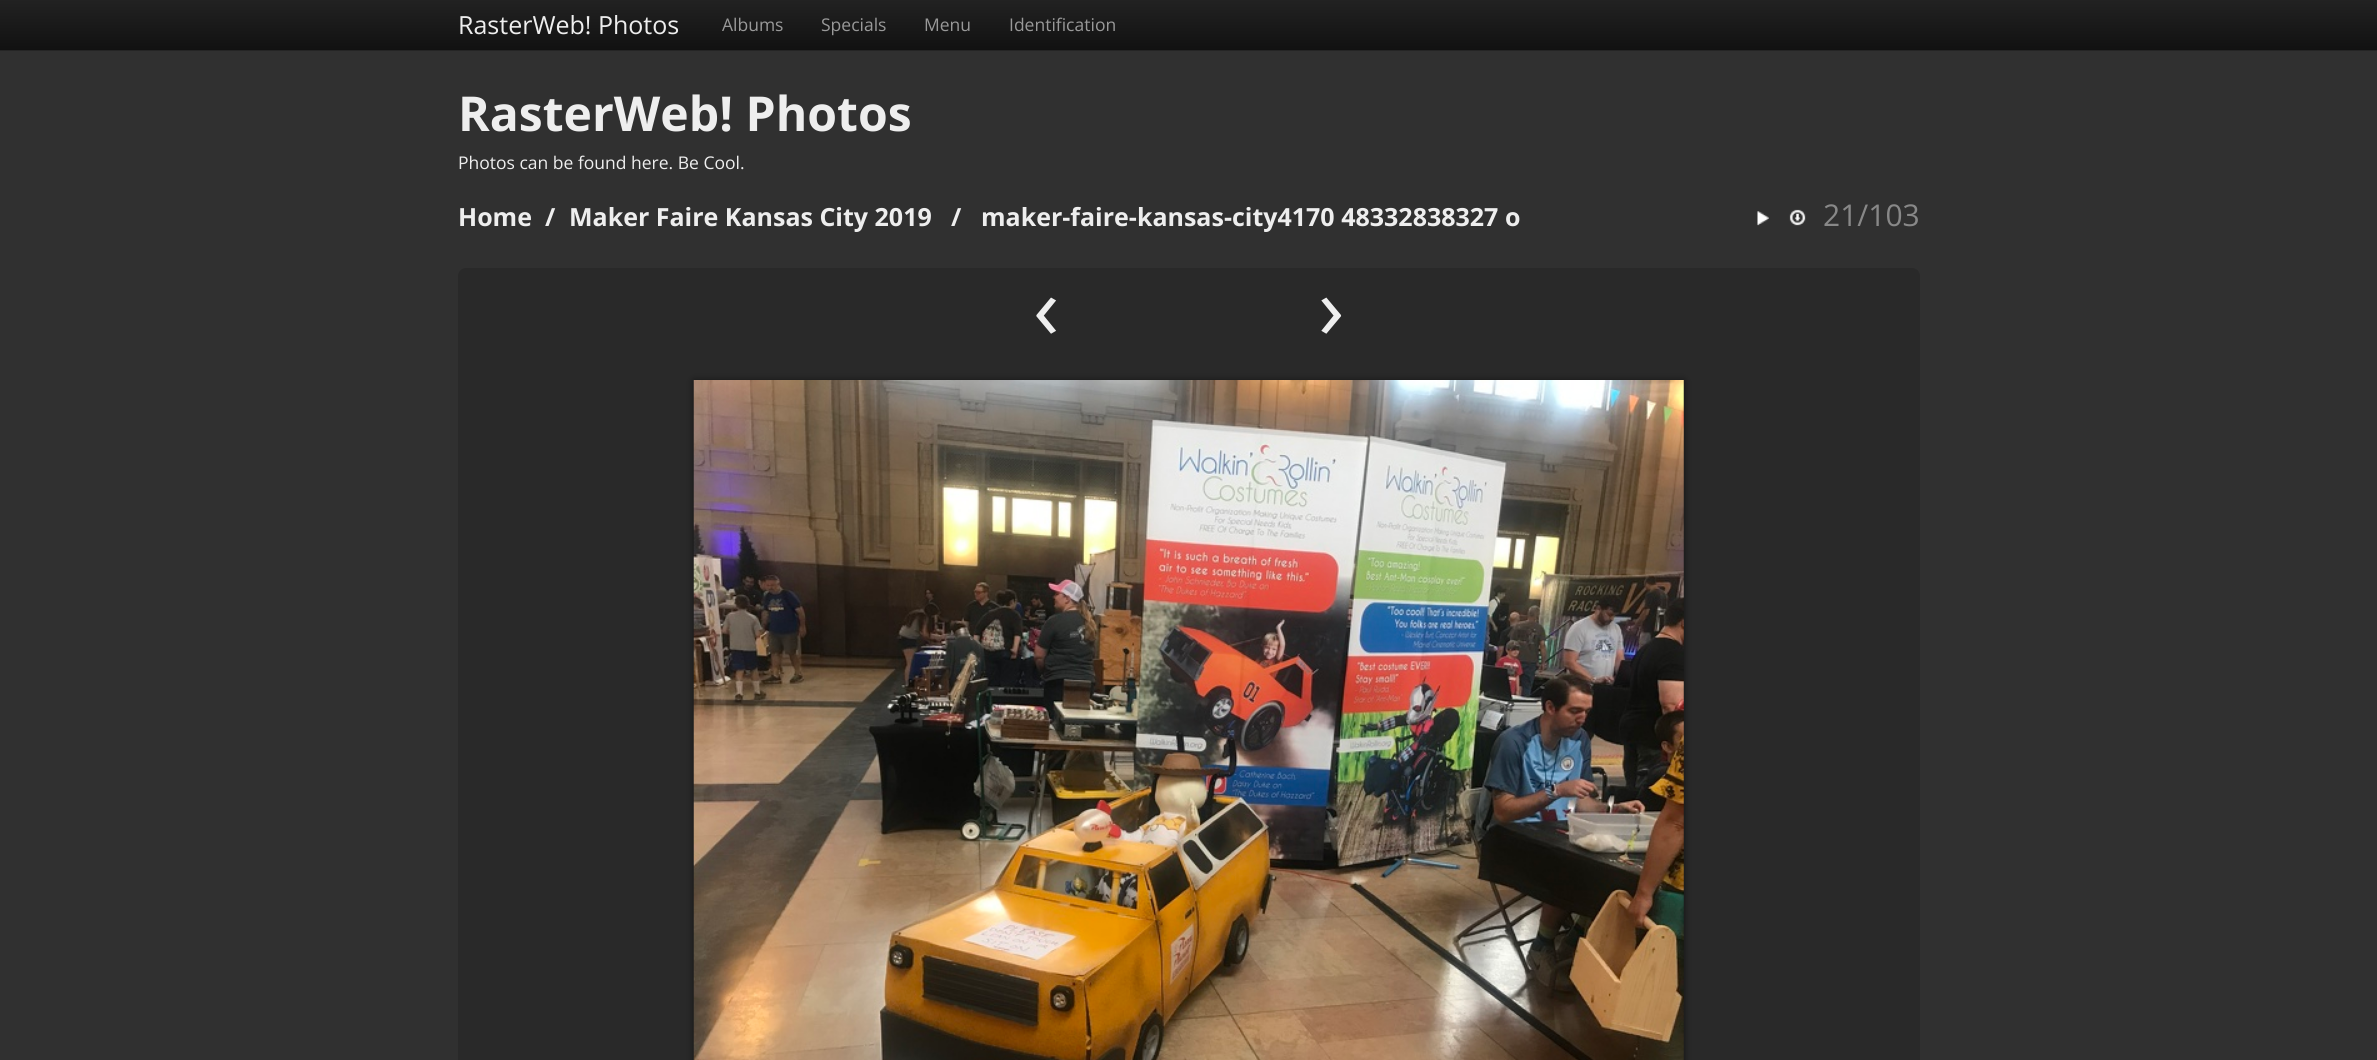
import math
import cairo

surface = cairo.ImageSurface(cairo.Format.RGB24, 2377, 1060)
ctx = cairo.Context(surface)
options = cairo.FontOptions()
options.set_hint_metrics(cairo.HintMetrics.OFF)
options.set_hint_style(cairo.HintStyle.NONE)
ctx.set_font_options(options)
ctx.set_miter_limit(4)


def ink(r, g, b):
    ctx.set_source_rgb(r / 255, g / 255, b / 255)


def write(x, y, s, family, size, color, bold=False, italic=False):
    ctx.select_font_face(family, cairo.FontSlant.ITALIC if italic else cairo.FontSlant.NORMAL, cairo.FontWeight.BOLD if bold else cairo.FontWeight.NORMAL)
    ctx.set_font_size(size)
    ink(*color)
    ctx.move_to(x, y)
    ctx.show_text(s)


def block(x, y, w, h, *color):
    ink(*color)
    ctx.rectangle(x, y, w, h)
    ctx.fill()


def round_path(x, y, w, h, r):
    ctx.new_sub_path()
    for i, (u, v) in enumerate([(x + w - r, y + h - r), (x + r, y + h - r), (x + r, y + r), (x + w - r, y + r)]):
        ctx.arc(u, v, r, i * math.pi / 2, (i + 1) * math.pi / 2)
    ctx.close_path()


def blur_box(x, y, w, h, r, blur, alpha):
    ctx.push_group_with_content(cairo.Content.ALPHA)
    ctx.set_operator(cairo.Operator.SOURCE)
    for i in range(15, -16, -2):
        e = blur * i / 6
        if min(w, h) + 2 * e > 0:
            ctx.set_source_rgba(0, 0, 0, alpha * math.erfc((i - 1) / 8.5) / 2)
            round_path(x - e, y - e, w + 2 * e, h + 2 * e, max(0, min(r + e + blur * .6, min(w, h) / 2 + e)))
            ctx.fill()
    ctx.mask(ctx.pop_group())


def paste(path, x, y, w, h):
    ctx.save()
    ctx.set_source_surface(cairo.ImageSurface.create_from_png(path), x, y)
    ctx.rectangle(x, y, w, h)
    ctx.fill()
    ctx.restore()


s1 = dict(family="Open Sans", size=25, color=(238, 238, 238))
s2 = dict(family="Open Sans", size=17.5, color=(153, 153, 153))
s3 = dict(family="Open Sans", size=48.1, color=(238, 238, 238), bold=True)
s4 = dict(family="Open Sans", size=17.5, color=(238, 238, 238))
s5 = dict(family="Open Sans", size=25, color=(238, 238, 238), bold=True)
s6 = dict(family="Open Sans", size=30, color=(136, 136, 136))
s7 = dict(family="Open Sans", size=88, color=(238, 238, 238))

ink(48, 48, 48)
ctx.paint()
gradient = cairo.LinearGradient(1189, 0, 1189, 50)
gradient.add_color_stop_rgba(0, 0.133, 0.133, 0.133, 1)
gradient.add_color_stop_rgba(1, 0.067, 0.067, 0.067, 1)
ctx.set_source(gradient)
ctx.rectangle(0, 0, 2377, 50)
ctx.fill()
block(0, 50, 2377, 1, 37, 37, 37)
write(458, 34, "RasterWeb! Photos", **s1)
write(722, 31, "Albums", **s2)
write(821, 31, "Specials", **s2)
write(924, 31, "Menu", **s2)
write(1009, 31, "Identification", **s2)
write(458, 131, "RasterWeb! Photos", **s3)
write(458, 169, "Photos can be found here. Be Cool.", **s4)
write(458, 226, "Home", **s5)
write(545, 226, "/", **s5)
write(569, 226, "Maker Faire Kansas City 2019", **s5)
write(951, 226, "/", **s5)
write(981, 226, "maker-faire-kansas-city4170 48332838327 o", **s5)
paste("pic1.png", 1757, 211, 12, 15)
paste("pic2.png", 1789, 209, 17, 17)
write(1823, 226, "21/103", **s6)
ink(41, 41, 41)
round_path(458, 268, 1462, 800, 8)
ctx.fill()
write(1033, 339, "‹", **s7)
write(1318, 339, "›", **s7)
ink(0, 0, 0)
blur_box(694, 381, 990, 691, 0, 4, 0.6)
paste("pic3.png", 693, 380, 991, 680)
surface.write_to_png("screenshot.png")
